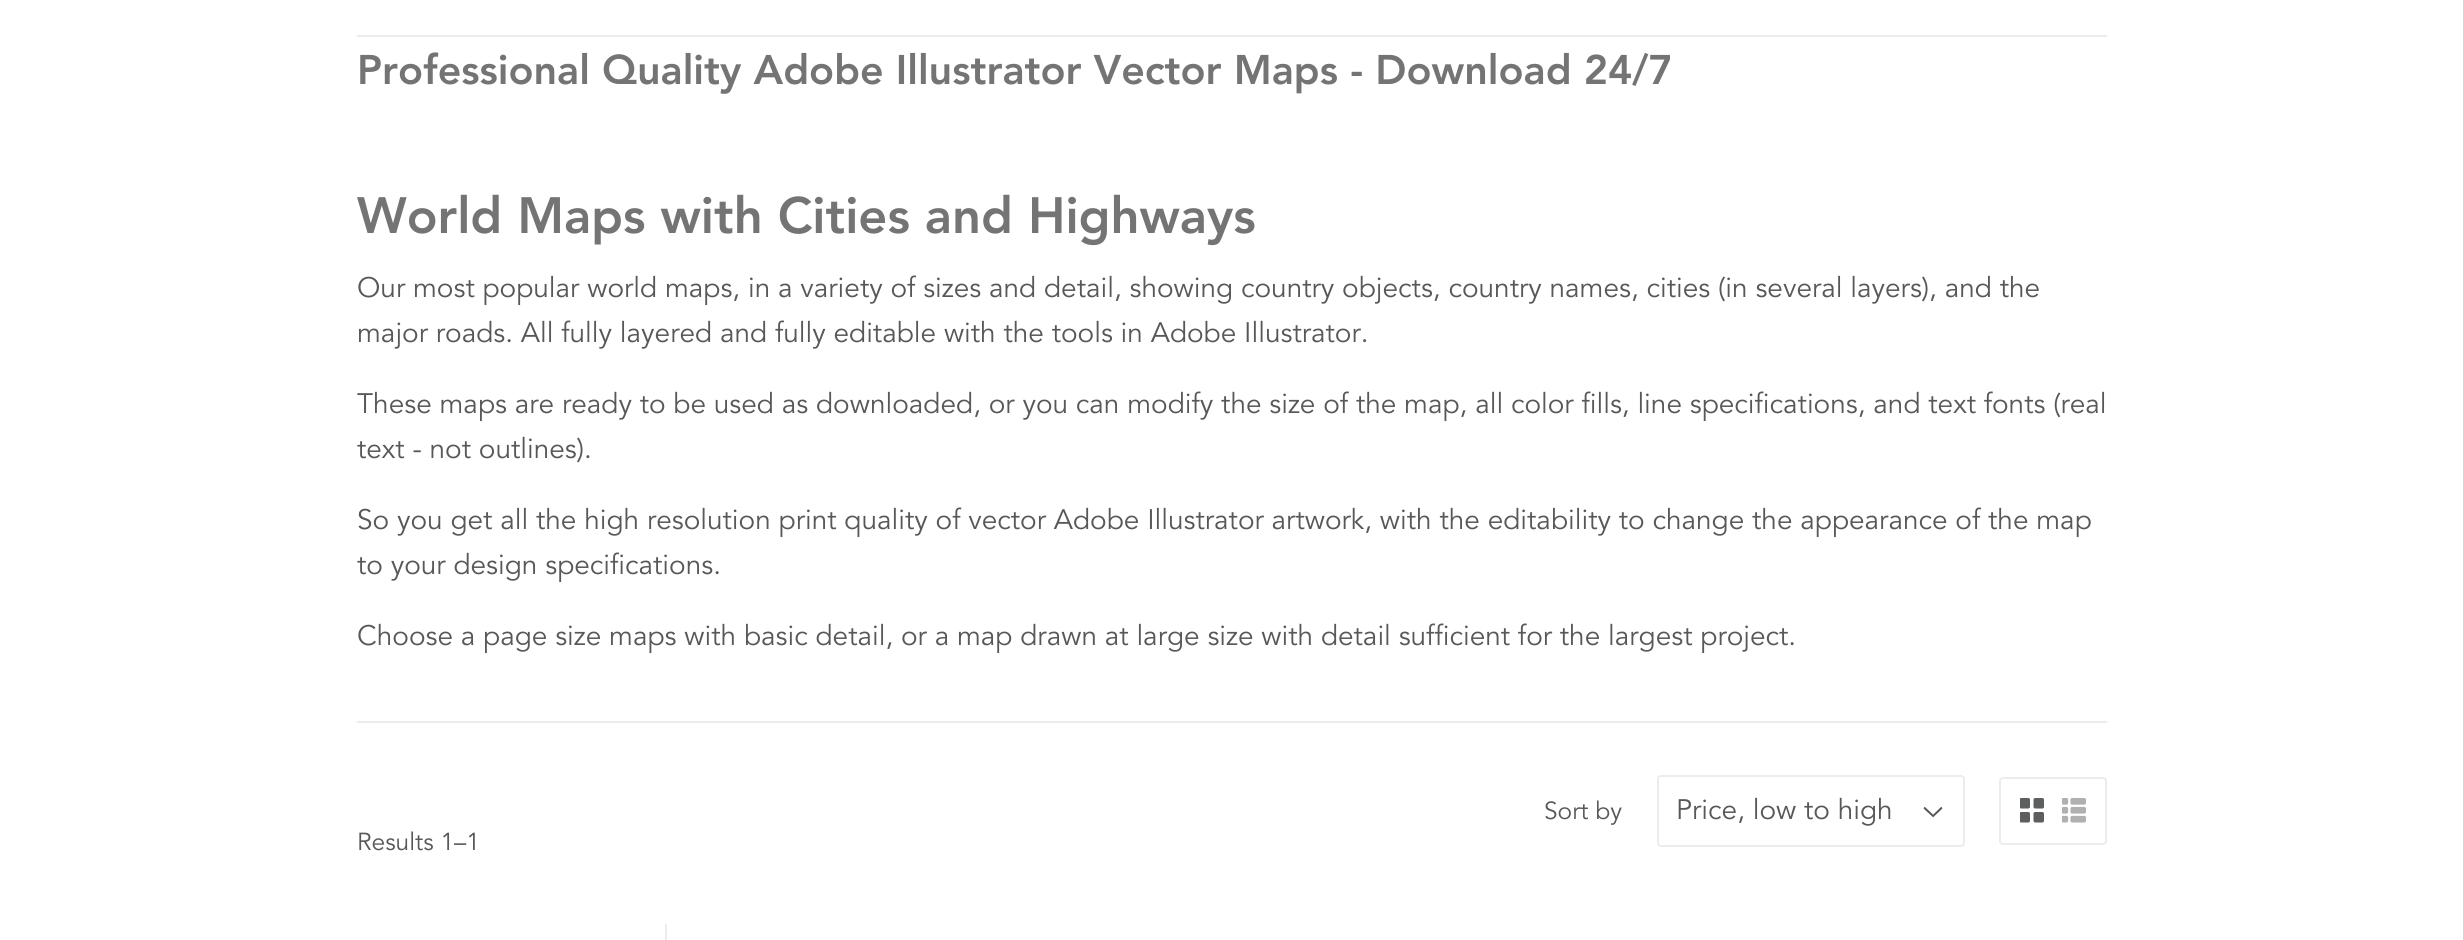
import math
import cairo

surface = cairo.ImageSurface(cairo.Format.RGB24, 2463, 940)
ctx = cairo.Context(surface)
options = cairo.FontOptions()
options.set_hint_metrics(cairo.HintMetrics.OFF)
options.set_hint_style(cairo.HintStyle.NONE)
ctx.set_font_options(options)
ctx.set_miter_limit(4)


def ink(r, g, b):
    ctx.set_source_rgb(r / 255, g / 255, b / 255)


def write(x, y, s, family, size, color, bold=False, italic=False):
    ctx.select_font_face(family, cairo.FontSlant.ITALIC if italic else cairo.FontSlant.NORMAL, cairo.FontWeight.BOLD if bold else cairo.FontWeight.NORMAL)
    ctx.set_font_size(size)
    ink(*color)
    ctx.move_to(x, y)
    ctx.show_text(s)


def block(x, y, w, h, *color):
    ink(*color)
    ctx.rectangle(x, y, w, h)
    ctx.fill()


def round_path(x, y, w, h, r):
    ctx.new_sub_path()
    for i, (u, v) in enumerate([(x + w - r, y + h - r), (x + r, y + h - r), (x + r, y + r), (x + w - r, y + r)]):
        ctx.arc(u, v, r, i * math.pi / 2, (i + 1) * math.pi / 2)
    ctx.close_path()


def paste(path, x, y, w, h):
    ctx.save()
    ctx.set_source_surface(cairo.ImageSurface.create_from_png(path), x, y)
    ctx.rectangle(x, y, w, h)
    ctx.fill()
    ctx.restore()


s1 = dict(family="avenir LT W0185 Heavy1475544 Black", size=41.1, color=(116, 116, 116))
s2 = dict(family="avenir LT W0185 Heavy1475544 Black", size=50.6, color=(116, 116, 116))
s3 = dict(family="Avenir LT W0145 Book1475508", size=28, color=(88, 88, 88))
s4 = dict(family="Avenir LT W0145 Book1475508", size=24.5, color=(88, 88, 88))

ink(255, 255, 255)
ctx.paint()
block(357, 35, 1750, 2, 236, 236, 236)
write(357, 84, "Professional Quality Adobe Illustrator Vector Maps - Download 24/7", **s1)
write(357, 233, "World Maps with Cities and Highways", **s2)
write(357, 297, "Our most popular world maps, in a variety of sizes and detail, showing country objects, country names, cities (in several layers), and the", **s3)
write(357, 342, "major roads. All fully layered and fully editable with the tools in Adobe Illustrator.", **s3)
write(357, 413, "These maps are ready to be used as downloaded, or you can modify the size of the map, all color fills, line specifications, and text fonts (real", **s3)
write(357, 458, "text - not outlines).", **s3)
write(357, 529, "So you get all the high resolution print quality of vector Adobe Illustrator artwork, with the editability to change the appearance of the map", **s3)
write(357, 574, "to your design specifications.", **s3)
write(357, 645, "Choose a page size maps with basic detail, or a map drawn at large size with detail sufficient for the largest project.", **s3)
block(357, 721, 1750, 2, 236, 236, 236)
write(1544, 819, "Sort by", **s4)
paste("pic1.png", 1923, 806, 20, 12)
round_path(1658, 776, 306, 70, 3)
ink(236, 236, 236)
ctx.stroke()
write(1676, 819, "Price, low to high", **s3)
round_path(2000, 778, 106, 66, 3)
ink(236, 236, 236)
ctx.stroke()
paste("pic2.png", 2020, 798, 24, 25)
paste("pic3.png", 2062, 798, 24, 25)
write(357, 850, "Results 1–1", **s4)
block(665, 924, 2, 16, 236, 236, 236)
surface.write_to_png("screenshot.png")
